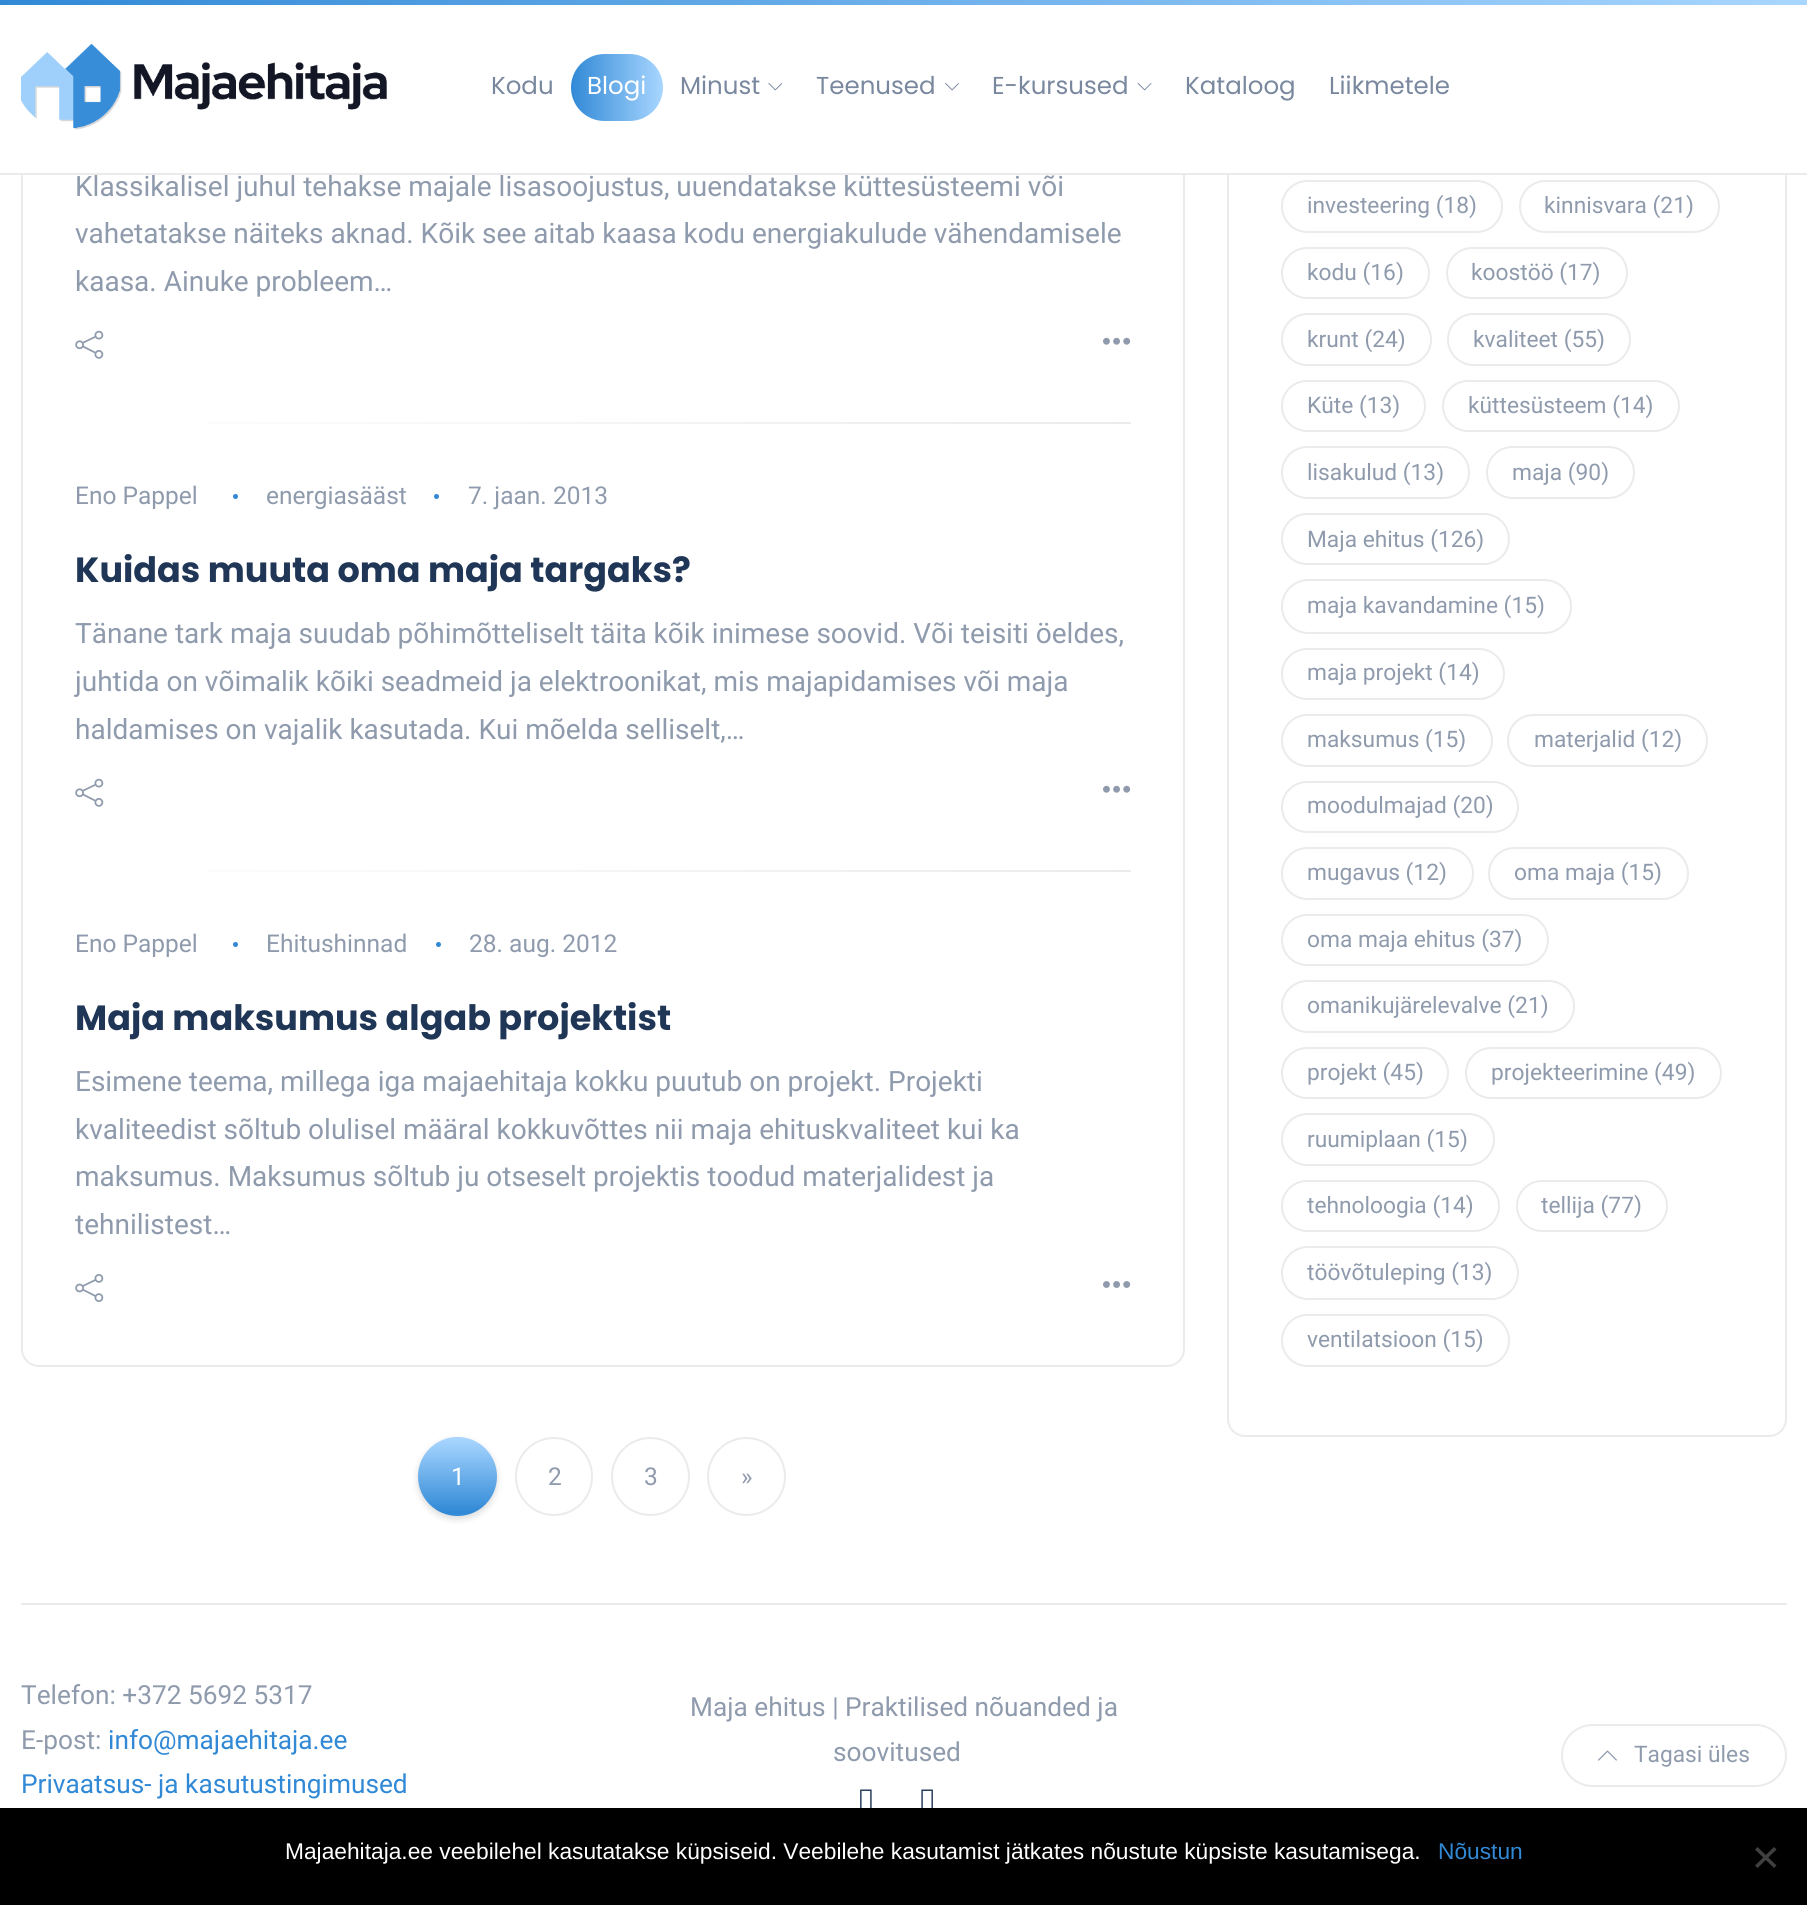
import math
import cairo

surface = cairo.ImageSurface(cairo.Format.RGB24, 1807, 1905)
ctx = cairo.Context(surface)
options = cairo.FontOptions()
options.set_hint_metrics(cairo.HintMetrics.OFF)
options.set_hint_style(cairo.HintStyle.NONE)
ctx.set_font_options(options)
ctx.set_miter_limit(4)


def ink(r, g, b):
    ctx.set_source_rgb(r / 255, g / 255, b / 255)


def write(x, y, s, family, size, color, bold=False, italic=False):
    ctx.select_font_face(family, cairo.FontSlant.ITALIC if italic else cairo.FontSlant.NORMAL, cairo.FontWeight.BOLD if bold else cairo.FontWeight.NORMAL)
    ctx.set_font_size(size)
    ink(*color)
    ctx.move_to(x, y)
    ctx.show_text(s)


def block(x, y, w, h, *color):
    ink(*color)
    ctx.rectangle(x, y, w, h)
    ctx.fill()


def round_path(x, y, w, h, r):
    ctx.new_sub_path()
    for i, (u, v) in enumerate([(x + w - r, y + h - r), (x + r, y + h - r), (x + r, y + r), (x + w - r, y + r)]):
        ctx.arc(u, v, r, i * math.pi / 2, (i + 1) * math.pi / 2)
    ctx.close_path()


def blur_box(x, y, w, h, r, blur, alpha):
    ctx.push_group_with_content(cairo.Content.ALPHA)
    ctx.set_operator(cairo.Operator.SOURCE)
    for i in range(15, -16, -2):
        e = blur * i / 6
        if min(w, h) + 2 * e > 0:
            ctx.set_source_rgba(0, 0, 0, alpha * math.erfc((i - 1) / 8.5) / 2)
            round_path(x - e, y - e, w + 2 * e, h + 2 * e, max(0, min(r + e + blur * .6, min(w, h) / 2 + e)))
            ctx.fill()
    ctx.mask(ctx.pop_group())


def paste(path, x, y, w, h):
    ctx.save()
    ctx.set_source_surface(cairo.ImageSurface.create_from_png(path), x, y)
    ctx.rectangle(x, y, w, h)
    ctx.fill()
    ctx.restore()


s1 = dict(family="Poppins", size=24.5, color=(121, 136, 158))
s2 = dict(family="Poppins", size=24.5, color=(255, 255, 255))
s3 = dict(family="Roboto", size=28, color=(143, 155, 173))
s4 = dict(family="Roboto", size=24.5, color=(143, 155, 173))
s5 = dict(family="Poppins", size=35, color=(32, 54, 86), bold=True)
s6 = dict(family="Roboto", size=24.5, color=(255, 255, 255))
s7 = dict(family="Roboto", size=22.75, color=(143, 155, 173))
s8 = dict(family="Roboto", size=26.25, color=(143, 155, 173))
s9 = dict(family="Roboto", size=26.25, color=(49, 137, 214))
s10 = dict(family="Liberation Sans", size=22.75, color=(255, 255, 255))
s11 = dict(family="Liberation Sans", size=22.75, color=(49, 137, 214))

ink(255, 255, 255)
ctx.paint()
round_path(22, -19, 1162, 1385, 17)
ink(235, 235, 235)
ctx.stroke()
round_path(1228, -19, 558, 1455, 17)
ctx.stroke()
gradient = cairo.LinearGradient(0, 2.6, 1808, 2.6)
gradient.add_color_stop_rgba(0, 0.192, 0.537, 0.839, 1)
gradient.add_color_stop_rgba(1, 0.659, 0.839, 1, 1)
ctx.set_source(gradient)
ctx.rectangle(0, 0, 1807, 5)
ctx.fill()
block(21, 5, 1766, 168, 255, 255, 255)
block(0, 173, 1807, 2, 235, 235, 235)
paste("pic1.png", 21, 44, 366, 86)
write(491, 94, "Kodu", **s1)
gradient = cairo.LinearGradient(571, 88, 663, 88)
gradient.add_color_stop_rgba(0, 0.192, 0.537, 0.839, 1)
gradient.add_color_stop_rgba(1, 0.659, 0.839, 1, 1)
ctx.set_source(gradient)
round_path(571, 54, 92, 67, 33.5)
ctx.fill()
write(587, 94, "Blogi", **s2)
write(680, 94, "Minust", **s1)
paste("pic2.png", 768, 83, 15, 8)
write(816, 94, "Teenused", **s1)
paste("pic3.png", 945, 83, 14, 8)
write(992, 94, "E-kursused", **s1)
paste("pic4.png", 1137, 83, 15, 8)
write(1185, 94, "Kataloog", **s1)
write(1329, 94, "Liikmetele", **s1)
write(75, 196, "Klassikalisel juhul tehakse majale lisasoojustus, uuendatakse küttesüsteemi või", **s3)
write(75, 243, "vahetatakse näiteks aknad. Kõik see aitab kaasa kodu energiakulude vähendamisele", **s3)
write(75, 291, "kaasa. Ainuke probleem…", **s3)
paste("pic5.png", 75, 330, 29, 29)
paste("pic6.png", 1103, 337, 28, 8)
gradient = cairo.LinearGradient(1131, 423, 75, 423)
gradient.add_color_stop_rgba(0, 0.922, 0.922, 0.922, 1)
gradient.add_color_stop_rgba(1, 1, 1, 1, 1)
ctx.set_source(gradient)
ctx.rectangle(207, 422, 924, 2)
ctx.fill()
write(75, 504, "Eno Pappel", **s4)
ink(49, 137, 214)
ctx.new_path()
ctx.arc(235.5, 496.5, 2.5, 0, 2 * math.pi)
ctx.fill()
write(266, 504, "energiasääst", **s4)
ink(49, 137, 214)
ctx.new_path()
ctx.arc(436.5, 496.5, 2.5, 0, 2 * math.pi)
ctx.fill()
write(468, 504, "7. jaan. 2013", **s4)
write(75, 582, "Kuidas muuta oma maja targaks?", **s5)
write(75, 643, "Tänane tark maja suudab põhimõtteliselt täita kõik inimese soovid. Või teisiti öeldes,", **s3)
write(75, 691, "juhtida on võimalik kõiki seadmeid ja elektroonikat, mis majapidamises või maja", **s3)
write(75, 739, "haldamises on vajalik kasutada. Kui mõelda selliselt,…", **s3)
paste("pic5.png", 75, 778, 29, 29)
paste("pic6.png", 1103, 785, 28, 8)
gradient = cairo.LinearGradient(1131, 871, 75, 871)
gradient.add_color_stop_rgba(0, 0.922, 0.922, 0.922, 1)
gradient.add_color_stop_rgba(1, 1, 1, 1, 1)
ctx.set_source(gradient)
ctx.rectangle(207, 870, 924, 2)
ctx.fill()
write(75, 952, "Eno Pappel", **s4)
ink(49, 137, 214)
ctx.new_path()
ctx.arc(235.5, 944.5, 2.5, 0, 2 * math.pi)
ctx.fill()
write(266, 952, "Ehitushinnad", **s4)
ink(49, 137, 214)
ctx.new_path()
ctx.arc(438.5, 944.5, 2.5, 0, 2 * math.pi)
ctx.fill()
write(469, 952, "28. aug. 2012", **s4)
write(75, 1030, "Maja maksumus algab projektist", **s5)
write(75, 1091, "Esimene teema, millega iga majaehitaja kokku puutub on projekt. Projekti", **s3)
write(75, 1139, "kvaliteedist sõltub olulisel määral kokkuvõttes nii maja ehituskvaliteet kui ka", **s3)
write(75, 1186, "maksumus. Maksumus sõltub ju otseselt projektis toodud materjalidest ja", **s3)
write(75, 1234, "tehnilistest…", **s3)
paste("pic7.png", 75, 1274, 29, 28)
paste("pic8.png", 1103, 1281, 28, 7)
ink(0, 0, 0)
blur_box(418, 1440, 79, 79, 39.5, 3.5, 0.15)
ctx.save()
round_path(418, 1437, 79, 79, 39.5)
ctx.clip()
gradient = cairo.LinearGradient(458, 1439, 458, 1288)
gradient.add_color_stop_rgba(0, 0.659, 0.839, 1, 1)
gradient.add_color_stop_rgba(0.51, 0.192, 0.537, 0.839, 1)
gradient.add_color_stop_rgba(1, 0.659, 0.839, 1, 1)
ctx.set_source(gradient)
ctx.rectangle(445, 1437, 25, 2)
ctx.fill()
gradient = cairo.LinearGradient(458, 1589, 458, 1439)
gradient.add_color_stop_rgba(0, 0.659, 0.839, 1, 1)
gradient.add_color_stop_rgba(0.51, 0.192, 0.537, 0.839, 1)
gradient.add_color_stop_rgba(1, 0.659, 0.839, 1, 1)
ctx.set_source(gradient)
ctx.new_path()
ctx.move_to(418, 1439)
ctx.line_to(497, 1439)
ctx.line_to(497, 1476.5)
ctx.curve_to(497, 1498.5, 479.5, 1516, 457.5, 1516)
ctx.curve_to(435.5, 1516, 418, 1498.5, 418, 1476.5)
ctx.close_path()
ctx.fill()
ctx.restore()
write(451, 1485, "1", **s6)
round_path(516, 1438, 76, 77, 38)
ink(235, 235, 235)
ctx.stroke()
write(548, 1485, "2", **s4)
ctx.new_path()
ctx.arc(650.5, 1476.5, 38.5, 0, 2 * math.pi)
ink(235, 235, 235)
ctx.stroke()
write(644, 1485, "3", **s4)
ctx.new_path()
ctx.arc(746.5, 1476.5, 38.5, 0, 2 * math.pi)
ink(235, 235, 235)
ctx.stroke()
write(741, 1485, "»", **s4)
round_path(1282, 181, 220, 51, 25.5)
ink(235, 235, 235)
ctx.stroke()
write(1307, 213, "investeering (18)", **s7)
round_path(1520, 181, 199, 51, 25.5)
ink(235, 235, 235)
ctx.stroke()
write(1544, 213, "kinnisvara (21)", **s7)
round_path(1282, 248, 147, 50, 25)
ink(235, 235, 235)
ctx.stroke()
write(1307, 280, "kodu (16)", **s7)
round_path(1447, 248, 180, 50, 25)
ink(235, 235, 235)
ctx.stroke()
write(1471, 280, "koostöö (17)", **s7)
round_path(1282, 314, 149, 51, 25.5)
ink(235, 235, 235)
ctx.stroke()
write(1307, 347, "krunt (24)", **s7)
round_path(1448, 314, 182, 51, 25.5)
ink(235, 235, 235)
ctx.stroke()
write(1473, 347, "kvaliteet (55)", **s7)
round_path(1282, 381, 143, 50, 25)
ink(235, 235, 235)
ctx.stroke()
write(1307, 413, "Küte (13)", **s7)
round_path(1443, 381, 236, 50, 25)
ink(235, 235, 235)
ctx.stroke()
write(1468, 413, "küttesüsteem (14)", **s7)
round_path(1282, 447, 187, 51, 25.5)
ink(235, 235, 235)
ctx.stroke()
write(1307, 480, "lisakulud (13)", **s7)
round_path(1487, 447, 147, 51, 25.5)
ink(235, 235, 235)
ctx.stroke()
write(1512, 480, "maja (90)", **s7)
round_path(1282, 514, 227, 50, 25)
ink(235, 235, 235)
ctx.stroke()
write(1307, 547, "Maja ehitus (126)", **s7)
round_path(1282, 580, 289, 53, 26.5)
ink(235, 235, 235)
ctx.stroke()
write(1307, 613, "maja kavandamine (15)", **s7)
round_path(1282, 649, 222, 50, 25)
ink(235, 235, 235)
ctx.stroke()
write(1307, 680, "maja projekt (14)", **s7)
round_path(1282, 715, 210, 51, 25.5)
ink(235, 235, 235)
ctx.stroke()
write(1307, 747, "maksumus (15)", **s7)
round_path(1508, 715, 199, 51, 25.5)
ink(235, 235, 235)
ctx.stroke()
write(1534, 747, "materjalid (12)", **s7)
round_path(1282, 782, 236, 50, 25)
ink(235, 235, 235)
ctx.stroke()
write(1307, 813, "moodulmajad (20)", **s7)
round_path(1282, 848, 191, 51, 25.5)
ink(235, 235, 235)
ctx.stroke()
write(1307, 880, "mugavus (12)", **s7)
round_path(1489, 848, 199, 51, 25.5)
ink(235, 235, 235)
ctx.stroke()
write(1514, 880, "oma maja (15)", **s7)
round_path(1282, 915, 266, 50, 25)
ink(235, 235, 235)
ctx.stroke()
write(1307, 947, "oma maja ehitus (37)", **s7)
round_path(1282, 981, 292, 51, 25.5)
ink(235, 235, 235)
ctx.stroke()
write(1307, 1013, "omanikujärelevalve (21)", **s7)
round_path(1282, 1048, 166, 50, 25)
ink(235, 235, 235)
ctx.stroke()
write(1307, 1080, "projekt (45)", **s7)
round_path(1466, 1048, 255, 50, 25)
ink(235, 235, 235)
ctx.stroke()
write(1491, 1080, "projekteerimine (49)", **s7)
round_path(1282, 1114, 212, 51, 25.5)
ink(235, 235, 235)
ctx.stroke()
write(1307, 1147, "ruumiplaan (15)", **s7)
round_path(1282, 1181, 217, 50, 25)
ink(235, 235, 235)
ctx.stroke()
write(1307, 1213, "tehnoloogia (14)", **s7)
round_path(1517, 1181, 150, 50, 25)
ink(235, 235, 235)
ctx.stroke()
write(1541, 1213, "tellija (77)", **s7)
round_path(1282, 1247, 236, 52, 26)
ink(235, 235, 235)
ctx.stroke()
write(1307, 1280, "töövõtuleping (13)", **s7)
round_path(1282, 1315, 227, 51, 25.5)
ink(235, 235, 235)
ctx.stroke()
write(1307, 1347, "ventilatsioon (15)", **s7)
block(21, 1603, 1766, 2, 235, 235, 235)
write(21, 1704, "Telefon: +372 5692 5317", **s8)
write(21, 1749, "E-post:", **s8)
write(108, 1749, "info@majaehitaja.ee", **s9)
write(21, 1793, "Privaatsus- ja kasutustingimused", **s9)
write(690, 1716, "Maja ehitus | Praktilised nõuanded ja", **s8)
write(833, 1761, "soovitused", **s8)
paste("pic9.png", 860, 1789, 12, 19)
paste("pic10.png", 921, 1789, 12, 19)
round_path(1562, 1725, 224, 61, 30.5)
ink(235, 235, 235)
ctx.stroke()
paste("pic11.png", 1598, 1750, 19, 11)
write(1634, 1762, "Tagasi üles", **s7)
block(0, 1808, 1807, 97, 0, 0, 0)
write(285, 1859, "Majaehitaja.ee veebilehel kasutatakse küpsiseid. Veebilehe kasutamist jätkates nõustute küpsiste kasutamisega.", **s10)
write(1438, 1859, "Nõustun", **s11)
ink(64, 64, 64)
ctx.new_path()
ctx.move_to(1774, 1847)
ctx.line_to(1776.5, 1849.5)
ctx.line_to(1757.5, 1868)
ctx.line_to(1755, 1865.5)
ctx.close_path()
ctx.fill()
ctx.new_path()
ctx.move_to(1755, 1849.5)
ctx.line_to(1757.5, 1847)
ctx.line_to(1776.5, 1865.5)
ctx.line_to(1774, 1868)
ctx.close_path()
ctx.fill()
surface.write_to_png("screenshot.png")
